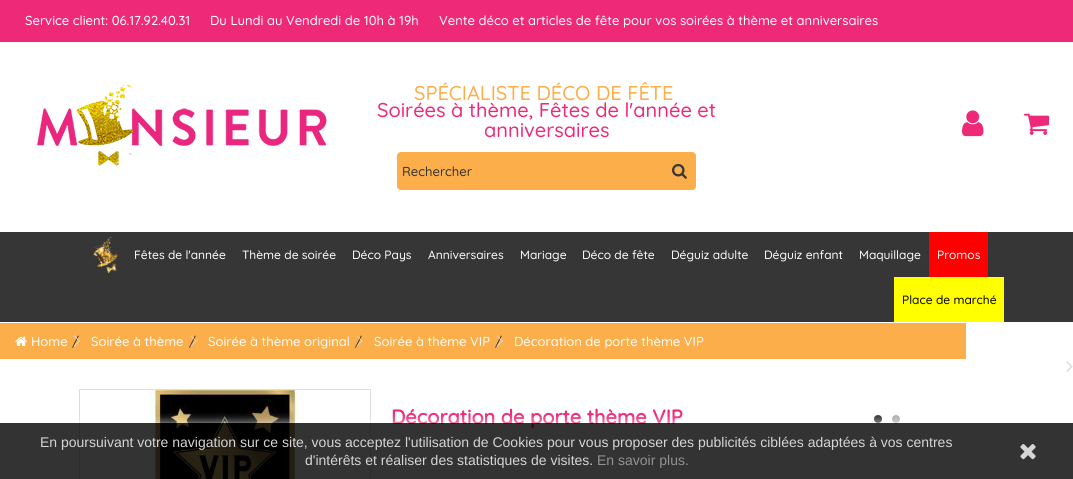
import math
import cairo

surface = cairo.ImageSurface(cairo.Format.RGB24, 1073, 479)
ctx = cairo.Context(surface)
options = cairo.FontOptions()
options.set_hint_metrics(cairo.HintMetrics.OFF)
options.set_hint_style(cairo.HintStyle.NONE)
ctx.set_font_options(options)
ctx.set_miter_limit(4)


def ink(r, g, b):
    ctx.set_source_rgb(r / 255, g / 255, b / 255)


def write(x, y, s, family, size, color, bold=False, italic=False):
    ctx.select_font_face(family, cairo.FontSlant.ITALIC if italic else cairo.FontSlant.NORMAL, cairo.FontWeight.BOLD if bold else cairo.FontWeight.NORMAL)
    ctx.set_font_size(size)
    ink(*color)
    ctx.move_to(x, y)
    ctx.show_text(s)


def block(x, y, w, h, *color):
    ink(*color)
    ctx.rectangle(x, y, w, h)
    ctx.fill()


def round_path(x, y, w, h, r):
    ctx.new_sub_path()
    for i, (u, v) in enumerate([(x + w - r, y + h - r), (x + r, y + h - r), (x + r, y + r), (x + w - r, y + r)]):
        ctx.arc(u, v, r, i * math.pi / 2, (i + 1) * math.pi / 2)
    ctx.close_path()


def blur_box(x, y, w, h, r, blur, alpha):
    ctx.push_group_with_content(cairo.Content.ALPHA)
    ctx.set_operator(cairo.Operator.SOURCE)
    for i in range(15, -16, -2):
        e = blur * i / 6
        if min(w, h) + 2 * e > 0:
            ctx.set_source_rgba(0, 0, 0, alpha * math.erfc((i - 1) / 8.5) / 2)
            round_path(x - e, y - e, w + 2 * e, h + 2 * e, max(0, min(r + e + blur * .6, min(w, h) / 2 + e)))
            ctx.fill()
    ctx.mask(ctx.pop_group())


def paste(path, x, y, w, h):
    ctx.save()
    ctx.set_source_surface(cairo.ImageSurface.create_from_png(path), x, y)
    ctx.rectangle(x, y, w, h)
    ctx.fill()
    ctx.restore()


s1 = dict(family="Quicksand Light", size=13, color=(255, 255, 255))
s2 = dict(family="Quicksand Light", size=20, color=(252, 174, 75))
s3 = dict(family="Quicksand Light", size=20, color=(238, 41, 120))
s4 = dict(family="Quicksand Light", size=13, color=(51, 51, 51))
s5 = dict(family="Quicksand Light", size=12, color=(255, 255, 255))
s6 = dict(family="Quicksand Light", size=12, color=(0, 0, 0))
s7 = dict(family="Quicksand", size=20, color=(238, 41, 120), bold=True)
s8 = dict(family="Liberation Sans", size=14, color=(213, 213, 213))
s9 = dict(family="Liberation Sans", size=14, color=(146, 146, 146))

ink(255, 255, 255)
ctx.paint()
block(0, 0, 1073, 42, 238, 42, 120)
write(25, 25, "Service client: 06.17.92.40.31", **s1)
write(210, 25, "Du Lundi au Vendredi de 10h à 19h", **s1)
write(439, 25, "Vente déco et articles de fête pour vos soirées à thème et anniversaires", **s1)
paste("pic1.png", 37, 85, 290, 81)
write(414, 100, "SPÉCIALISTE DÉCO DE FÊTE", **s2)
write(377, 117, "Soirées à thème, Fêtes de l'année et", **s3)
write(484, 137, "anniversaires", **s3)
ink(252, 174, 75)
round_path(396.5, 151.5, 300, 39, 4.5)
ctx.fill_preserve()
ink(255, 255, 255)
ctx.set_line_width(1)
ctx.stroke()
write(402, 176, "Rechercher", **s4)
paste("pic2.png", 672, 163, 15, 16)
paste("pic3.png", 962, 110, 22, 27)
paste("pic4.png", 1024, 113, 25, 22)
block(0, 232, 1073, 90, 54, 54, 54)
paste("pic5.png", 93, 237, 25, 36)
write(134, 259, "Fêtes de l'année", **s5)
write(242, 259, "Thème de soirée", **s5)
write(352, 259, "Déco Pays", **s5)
write(428, 259, "Anniversaires", **s5)
write(520, 259, "Mariage", **s5)
write(582, 259, "Déco de fête", **s5)
write(671, 259, "Déguiz adulte", **s5)
write(764, 259, "Déguiz enfant", **s5)
write(859, 259, "Maquillage", **s5)
block(929, 232, 59, 45, 255, 0, 0)
write(937, 259, "Promos", **s5)
block(894, 277, 110, 45, 255, 255, 0)
write(902, 304, "Place de marché", **s6)
block(0, 323, 966, 36, 252, 174, 75)
paste("pic6.png", 15, 336, 12, 10)
write(31, 346, "Home", **s1)
write(72, 346, "/", **s4)
ink(221, 221, 221)
ctx.new_path()
ctx.move_to(74.5, 335.5)
ctx.line_to(80, 341)
ctx.line_to(79.5, 341.5)
ctx.line_to(73.5, 336)
ctx.close_path()
ctx.fill()
ctx.new_path()
ctx.move_to(79.5, 340.5)
ctx.line_to(80, 341)
ctx.line_to(74.5, 346.5)
ctx.line_to(73.5, 346)
ctx.close_path()
ctx.fill()
write(91, 346, "Soirée à thème", **s1)
write(189, 346, "/", **s4)
ink(221, 221, 221)
ctx.new_path()
ctx.move_to(191, 335.5)
ctx.line_to(196.5, 341)
ctx.line_to(196, 341.5)
ctx.line_to(190.5, 336)
ctx.close_path()
ctx.fill()
ctx.new_path()
ctx.move_to(196, 340.5)
ctx.line_to(196.5, 341)
ctx.line_to(191, 346.5)
ctx.line_to(190.5, 346)
ctx.close_path()
ctx.fill()
write(208, 346, "Soirée à thème original", **s1)
write(355, 346, "/", **s4)
ink(221, 221, 221)
ctx.new_path()
ctx.move_to(357, 335.5)
ctx.line_to(362.5, 341)
ctx.line_to(362, 341.5)
ctx.line_to(356.5, 336)
ctx.close_path()
ctx.fill()
ctx.new_path()
ctx.move_to(362, 340.5)
ctx.line_to(362.5, 341)
ctx.line_to(357, 346.5)
ctx.line_to(356.5, 346)
ctx.close_path()
ctx.fill()
write(374, 346, "Soirée à thème VIP", **s1)
write(495, 346, "/", **s4)
ink(221, 221, 221)
ctx.new_path()
ctx.move_to(497, 335.5)
ctx.line_to(503, 341)
ctx.line_to(502, 341.5)
ctx.line_to(496.5, 336)
ctx.close_path()
ctx.fill()
ctx.new_path()
ctx.move_to(502, 340.5)
ctx.line_to(503, 341)
ctx.line_to(497, 346.5)
ctx.line_to(496.5, 346)
ctx.close_path()
ctx.fill()
write(514, 346, "Décoration de porte thème VIP", **s1)
paste("pic7.png", 1066, 361, 7, 11)
ctx.rectangle(79.5, 389.5, 291, 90)
ink(221, 221, 221)
ctx.stroke()
paste("pic8.png", 149, 390, 155, 89)
write(391, 424, "Décoration de porte thème VIP", **s7)
ink(51, 51, 51)
ctx.new_path()
ctx.arc(878, 419, 4, 0, 2 * math.pi)
ctx.fill()
ink(176, 176, 176)
ctx.arc(896, 419, 4, 0, 2 * math.pi)
ctx.fill()
ctx.save()
ctx.rectangle(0, 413, 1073, 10)
ctx.clip()
ink(255, 255, 255)
blur_box(0, 423, 1073, 56, 0, 5, 0.8)
ctx.restore()
ctx.set_source_rgba(0, 0, 0, 0.8)
ctx.rectangle(0, 423, 1073, 56)
ctx.fill()
write(40, 447, "En poursuivant votre navigation sur ce site, vous acceptez l'utilisation de Cookies pour vous proposer des publicités ciblées adaptées à vos centres", **s8)
write(305, 465, "d'intérêts et réaliser des statistiques de visites.", **s8)
write(597, 465, "En savoir plus.", **s9)
paste("pic9.png", 1020, 444, 16, 16)
surface.write_to_png("screenshot.png")
